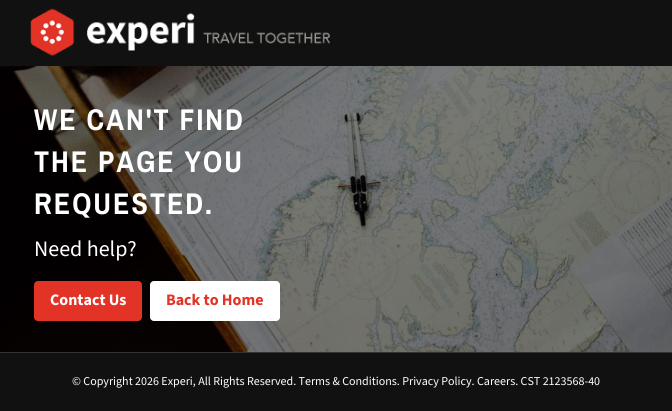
import math
import cairo

surface = cairo.ImageSurface(cairo.Format.RGB24, 672, 411)
ctx = cairo.Context(surface)
options = cairo.FontOptions()
options.set_hint_metrics(cairo.HintMetrics.OFF)
options.set_hint_style(cairo.HintStyle.NONE)
ctx.set_font_options(options)
ctx.set_miter_limit(4)


def ink(r, g, b):
    ctx.set_source_rgb(r / 255, g / 255, b / 255)


def write(x, y, s, family, size, color, bold=False, italic=False):
    ctx.select_font_face(family, cairo.FontSlant.ITALIC if italic else cairo.FontSlant.NORMAL, cairo.FontWeight.BOLD if bold else cairo.FontWeight.NORMAL)
    ctx.set_font_size(size)
    ink(*color)
    ctx.move_to(x, y)
    ctx.show_text(s)


def write_spaced(x, y, s, letter, word):
    ctx.move_to(x, y)
    for ch in s:
        ctx.show_text(ch)
        ctx.rel_move_to(letter + word * (ch == ' '), 0)


def block(x, y, w, h, *color):
    ink(*color)
    ctx.rectangle(x, y, w, h)
    ctx.fill()


def round_path(x, y, w, h, r):
    ctx.new_sub_path()
    for i, (u, v) in enumerate([(x + w - r, y + h - r), (x + r, y + h - r), (x + r, y + r), (x + w - r, y + r)]):
        ctx.arc(u, v, r, i * math.pi / 2, (i + 1) * math.pi / 2)
    ctx.close_path()


def paste(path, x, y, w, h):
    ctx.save()
    ctx.set_source_surface(cairo.ImageSurface.create_from_png(path), x, y)
    ctx.rectangle(x, y, w, h)
    ctx.fill()
    ctx.restore()


s1 = dict(family="Source Sans 3", size=22, color=(255, 255, 255))
s2 = dict(family="Source Sans 3", size=16, color=(255, 255, 255), bold=True)
s3 = dict(family="Source Sans 3", size=16, color=(227, 51, 38), bold=True)
s4 = dict(family="Source Sans 3", size=12, color=(255, 255, 255))

ink(17, 17, 17)
ctx.paint()
paste("pic1.png", 30, 8, 301, 48)
paste("pic2.png", 0, 66, 672, 286)
ctx.select_font_face("Archivo Narrow", cairo.FontSlant.NORMAL, cairo.FontWeight.BOLD)
ctx.set_font_size(30)
ink(255, 255, 255)
write_spaced(34, 130, "WE CAN'T FIND", 2, 0)
write_spaced(34, 172, "THE PAGE YOU", 2, 0)
write_spaced(34, 214, "REQUESTED.", 2, 0)
write(34, 256, "Need help?", **s1)
ink(227, 51, 38)
round_path(34.5, 281.5, 107, 39, 3.5)
ctx.fill_preserve()
ctx.set_line_width(1)
ctx.stroke()
write(50, 305, "Contact Us", **s2)
round_path(150.5, 281.5, 129, 39, 3.5)
ctx.fill_preserve()
ctx.stroke()
write(166, 305, "Back to Home", **s3)
block(0, 352, 672, 1, 50, 50, 50)
write(72, 385, "© Copyright 2026 Experi, All Rights Reserved. Terms & Conditions. Privacy Policy. Careers. CST 2123568-40", **s4)
surface.write_to_png("screenshot.png")
